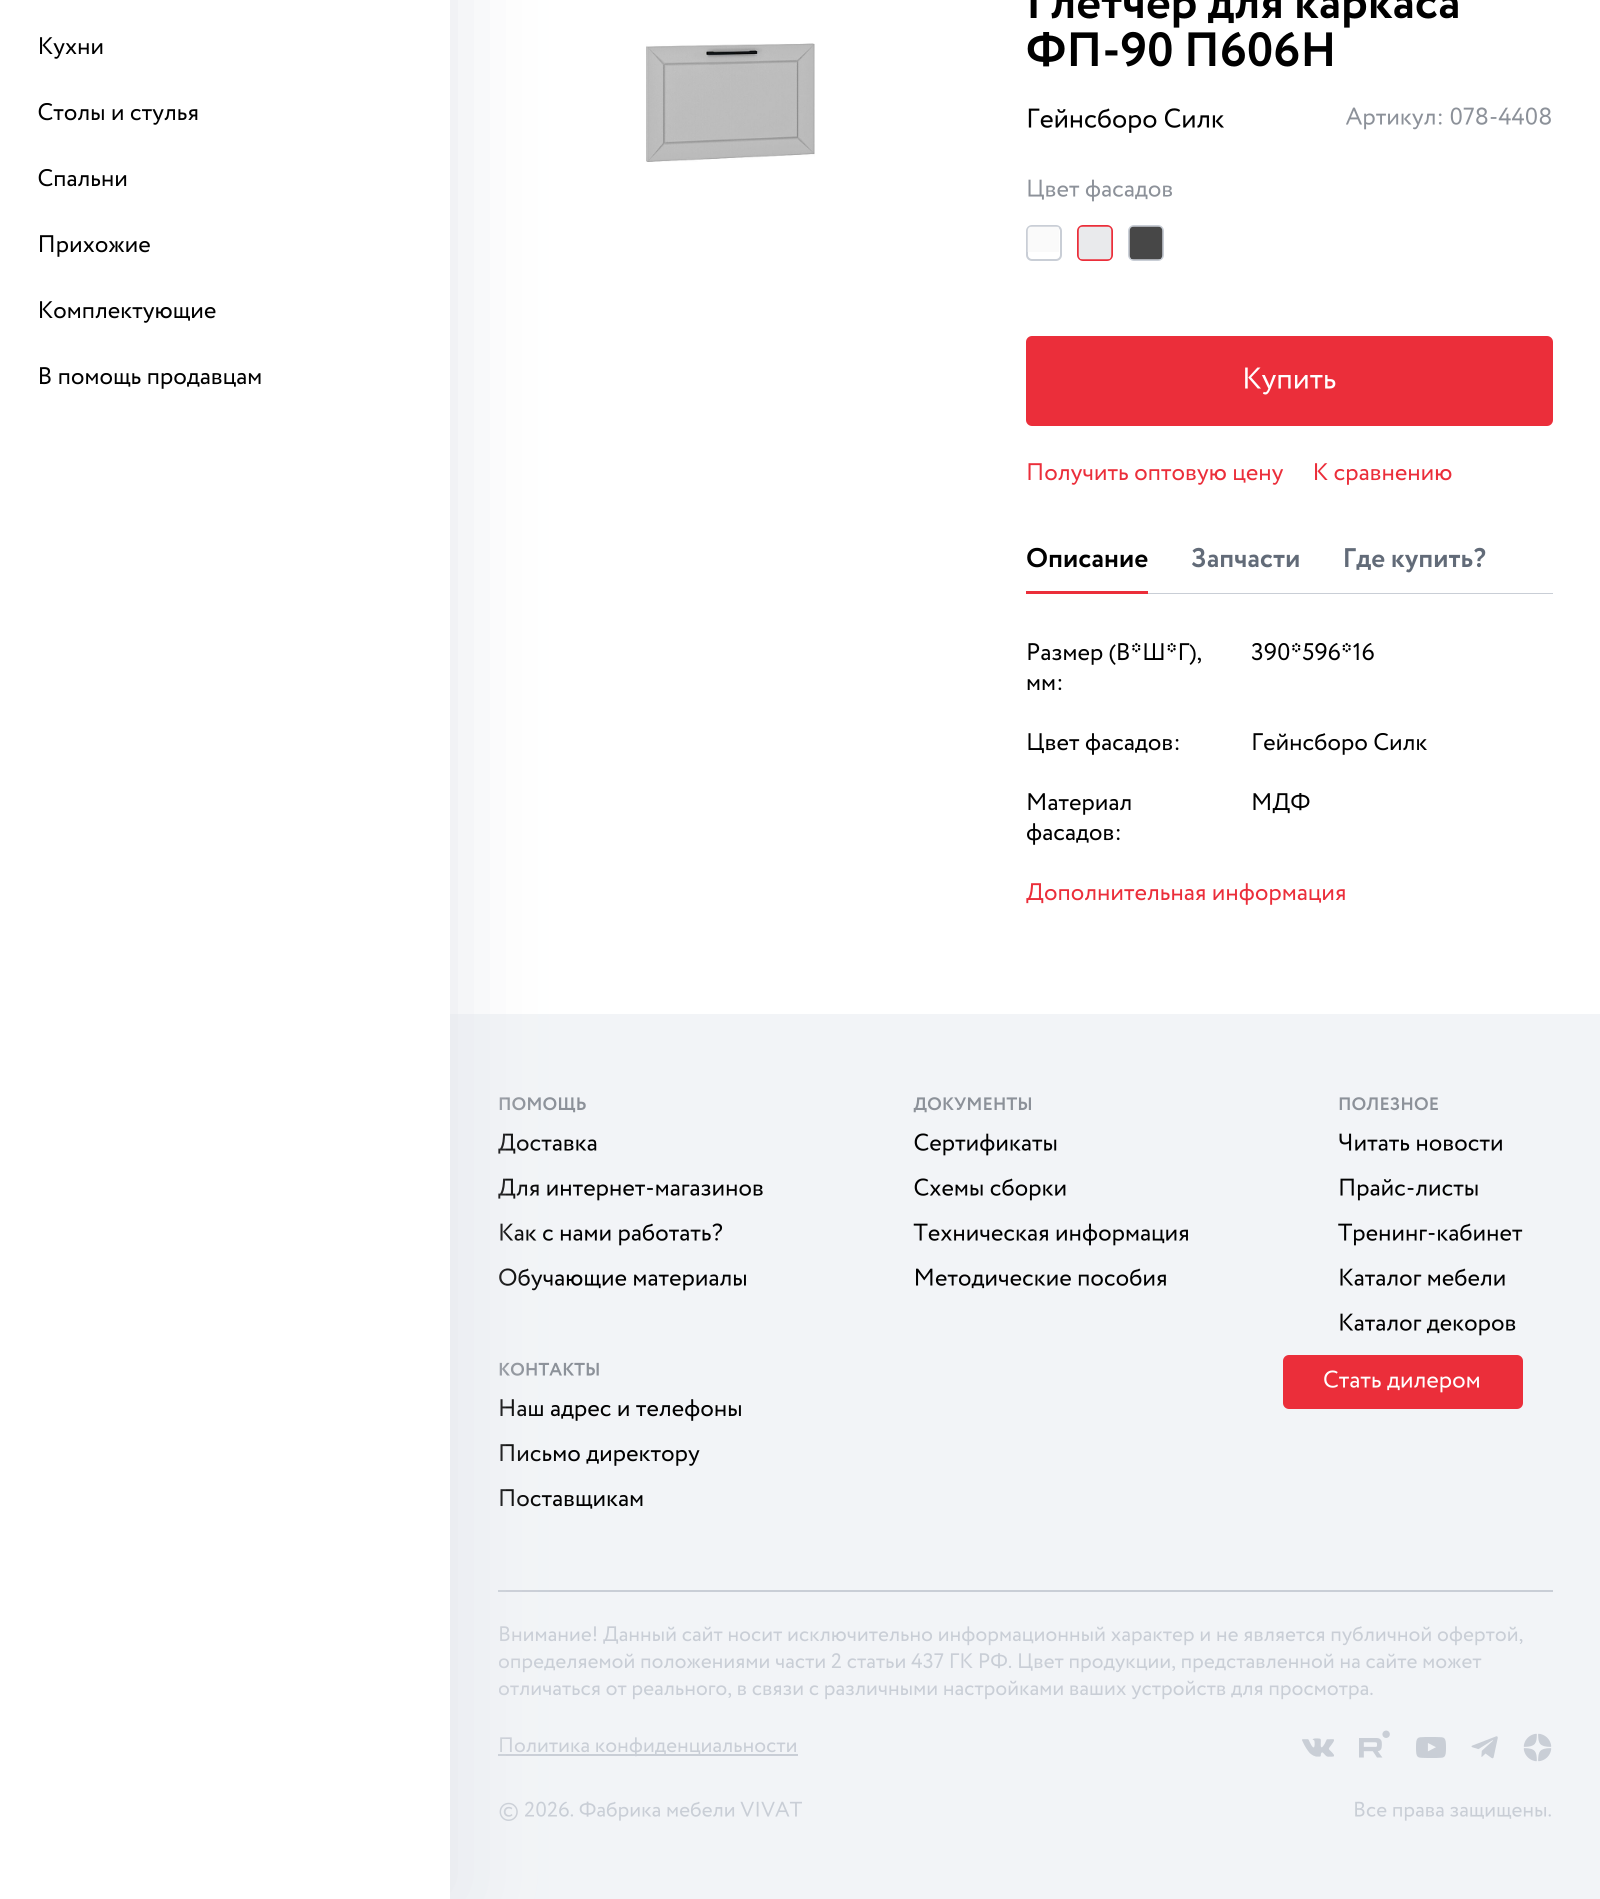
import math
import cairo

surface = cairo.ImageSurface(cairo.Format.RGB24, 1600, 1899)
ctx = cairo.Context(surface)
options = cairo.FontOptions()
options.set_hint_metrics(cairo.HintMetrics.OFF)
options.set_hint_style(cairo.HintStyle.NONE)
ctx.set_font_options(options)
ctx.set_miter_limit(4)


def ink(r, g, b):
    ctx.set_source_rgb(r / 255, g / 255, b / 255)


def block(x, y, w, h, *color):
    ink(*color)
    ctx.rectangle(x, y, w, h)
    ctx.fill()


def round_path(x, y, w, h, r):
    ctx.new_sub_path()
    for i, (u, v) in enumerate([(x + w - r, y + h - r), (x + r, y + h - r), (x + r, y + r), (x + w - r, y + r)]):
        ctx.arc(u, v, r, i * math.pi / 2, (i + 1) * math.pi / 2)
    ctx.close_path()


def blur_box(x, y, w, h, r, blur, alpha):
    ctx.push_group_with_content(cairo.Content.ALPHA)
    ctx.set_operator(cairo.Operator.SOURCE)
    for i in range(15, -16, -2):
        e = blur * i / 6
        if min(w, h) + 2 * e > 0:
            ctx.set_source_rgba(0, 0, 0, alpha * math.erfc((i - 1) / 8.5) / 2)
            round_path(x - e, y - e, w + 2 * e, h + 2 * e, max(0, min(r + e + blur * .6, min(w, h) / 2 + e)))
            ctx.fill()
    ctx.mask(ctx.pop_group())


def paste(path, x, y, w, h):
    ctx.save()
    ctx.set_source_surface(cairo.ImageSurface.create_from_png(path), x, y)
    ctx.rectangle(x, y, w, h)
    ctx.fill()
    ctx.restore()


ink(255, 255, 255)
ctx.paint()
block(450, 1014, 1150, 885, 242, 244, 247)
paste("pic31.png", 499, 1097, 87, 16)
paste("pic32.png", 498, 1133, 99, 21)
paste("pic33.png", 498, 1178, 265, 23)
paste("pic34.png", 500, 1223, 223, 23)
paste("pic35.png", 499, 1268, 247, 23)
paste("pic47.png", 499, 1362, 100, 14)
paste("pic48.png", 500, 1399, 241, 22)
paste("pic49.png", 500, 1444, 200, 22)
paste("pic50.png", 500, 1489, 143, 20)
block(498, 1590, 1055, 2, 201, 206, 214)
paste("pic52.png", 500, 1626, 1023, 20)
paste("pic53.png", 499, 1653, 983, 20)
paste("pic54.png", 499, 1680, 874, 20)
block(498, 1754, 300, 2, 201, 206, 214)
paste("pic55.png", 500, 1737, 296, 20)
paste("pic61.png", 499, 1801, 303, 20)
ctx.save()
ctx.rectangle(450, 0, 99, 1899)
ctx.clip()
ink(228, 230, 235)
blur_box(0, -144, 450, 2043, 0, 48, 1)
ctx.restore()
paste("pic1.png", 40, 37, 63, 22)
paste("pic2.png", 38, 103, 160, 22)
paste("pic3.png", 38, 169, 89, 18)
paste("pic4.png", 40, 235, 110, 22)
paste("pic5.png", 40, 301, 176, 22)
paste("pic6.png", 40, 367, 221, 22)
paste("pic7.png", 646, 43, 169, 119)
paste("pic8.png", 1030, 0, 428, 28)
paste("pic9.png", 1027, 31, 305, 36)
paste("pic10.png", 1028, 108, 196, 25)
paste("pic11.png", 1346, 107, 205, 23)
paste("pic12.png", 1028, 179, 144, 23)
round_path(1027, 226, 34, 34, 5)
ctx.stroke()
paste("pic13.png", 1027, 226, 32, 26)
round_path(1078, 226, 34, 34, 5)
ink(235, 46, 58)
ctx.stroke()
paste("pic14.png", 1078, 226, 34, 34)
round_path(1129, 226, 34, 34, 5)
ink(201, 206, 214)
ctx.stroke()
paste("pic15.png", 1129, 226, 34, 34)
ink(235, 46, 58)
round_path(1027, 337, 525, 88, 5)
ctx.fill_preserve()
ctx.stroke()
paste("pic16.png", 1245, 367, 91, 28)
paste("pic17.png", 1028, 463, 256, 22)
paste("pic18.png", 1315, 463, 137, 22)
paste("pic19.png", 1027, 547, 121, 21)
block(1026, 591, 122, 3, 235, 46, 58)
paste("pic20.png", 1192, 547, 107, 21)
paste("pic21.png", 1345, 547, 141, 26)
block(1148, 593, 405, 1, 201, 206, 214)
paste("pic22.png", 1028, 643, 173, 22)
paste("pic23.png", 1027, 679, 35, 11)
paste("pic24.png", 1251, 643, 123, 18)
paste("pic25.png", 1028, 733, 151, 22)
paste("pic26.png", 1253, 733, 174, 22)
paste("pic27.png", 1028, 793, 103, 22)
paste("pic28.png", 1027, 823, 93, 22)
paste("pic29.png", 1253, 793, 57, 21)
paste("pic30.png", 1026, 883, 319, 22)
paste("pic36.png", 913, 1097, 118, 16)
paste("pic37.png", 914, 1133, 143, 23)
paste("pic38.png", 914, 1178, 152, 23)
paste("pic39.png", 913, 1223, 275, 23)
paste("pic40.png", 916, 1268, 250, 21)
paste("pic41.png", 1339, 1097, 99, 14)
paste("pic42.png", 1339, 1133, 163, 18)
paste("pic43.png", 1340, 1178, 138, 23)
paste("pic44.png", 1338, 1223, 185, 23)
paste("pic45.png", 1340, 1268, 165, 18)
paste("pic46.png", 1340, 1313, 176, 23)
ink(235, 46, 58)
round_path(1284, 1356, 238, 52, 5)
ctx.fill_preserve()
ctx.stroke()
paste("pic51.png", 1324, 1370, 155, 23)
paste("pic56.png", 1302, 1738, 32, 19)
paste("pic57.png", 1359, 1730, 31, 28)
paste("pic58.png", 1416, 1737, 30, 21)
paste("pic59.png", 1471, 1736, 27, 23)
paste("pic60.png", 1523, 1733, 29, 29)
paste("pic62.png", 1355, 1801, 196, 20)
surface.write_to_png("screenshot.png")
